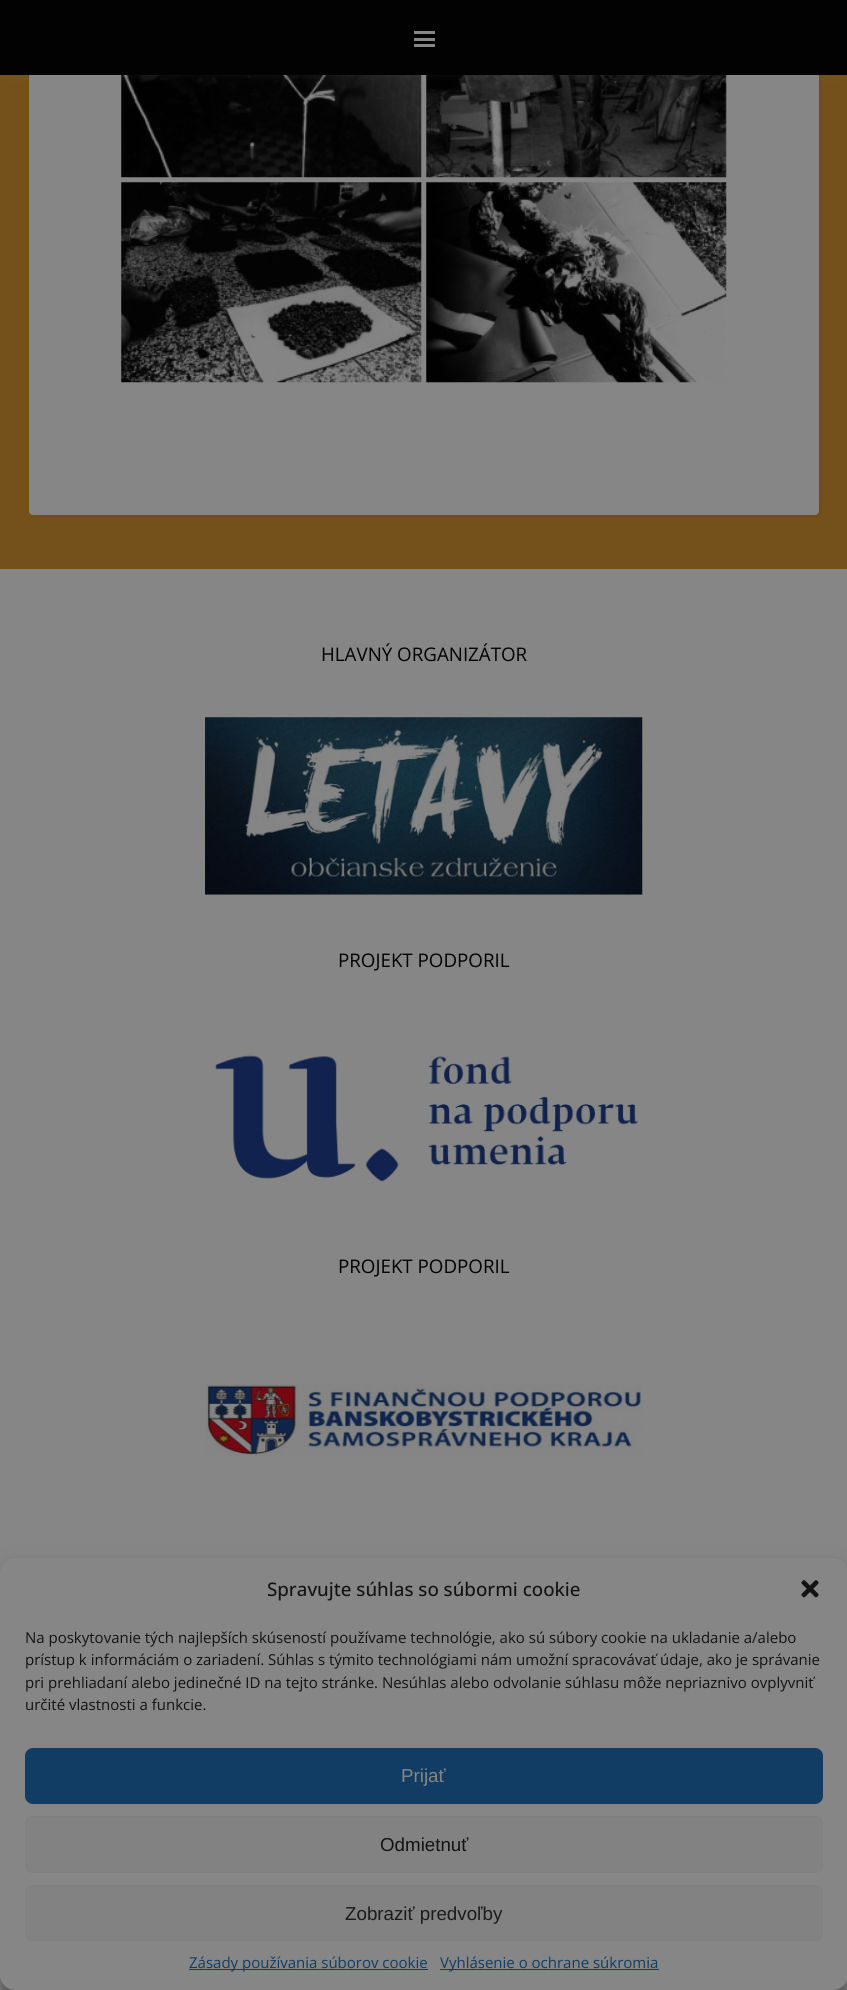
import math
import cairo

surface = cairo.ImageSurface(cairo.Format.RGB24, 847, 1990)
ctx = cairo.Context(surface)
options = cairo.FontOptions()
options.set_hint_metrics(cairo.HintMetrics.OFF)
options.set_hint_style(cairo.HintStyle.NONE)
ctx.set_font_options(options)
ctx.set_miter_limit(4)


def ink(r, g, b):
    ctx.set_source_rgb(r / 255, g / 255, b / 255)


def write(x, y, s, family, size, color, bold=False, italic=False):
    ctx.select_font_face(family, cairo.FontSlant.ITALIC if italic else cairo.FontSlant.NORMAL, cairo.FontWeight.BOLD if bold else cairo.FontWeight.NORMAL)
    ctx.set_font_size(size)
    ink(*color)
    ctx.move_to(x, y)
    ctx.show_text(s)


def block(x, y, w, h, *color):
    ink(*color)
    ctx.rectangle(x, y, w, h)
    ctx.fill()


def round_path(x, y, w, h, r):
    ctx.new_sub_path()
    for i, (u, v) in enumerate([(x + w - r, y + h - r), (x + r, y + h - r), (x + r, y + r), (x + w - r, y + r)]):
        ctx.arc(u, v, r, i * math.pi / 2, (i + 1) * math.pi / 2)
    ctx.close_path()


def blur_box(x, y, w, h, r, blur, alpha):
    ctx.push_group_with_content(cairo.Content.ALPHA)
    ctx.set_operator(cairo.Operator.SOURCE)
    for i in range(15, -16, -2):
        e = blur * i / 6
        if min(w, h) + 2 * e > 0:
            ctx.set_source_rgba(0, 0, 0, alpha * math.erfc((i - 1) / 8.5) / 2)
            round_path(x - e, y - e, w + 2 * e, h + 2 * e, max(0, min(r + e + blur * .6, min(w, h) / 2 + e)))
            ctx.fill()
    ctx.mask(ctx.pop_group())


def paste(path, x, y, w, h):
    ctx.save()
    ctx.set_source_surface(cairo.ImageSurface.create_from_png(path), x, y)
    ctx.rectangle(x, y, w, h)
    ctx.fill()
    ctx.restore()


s1 = dict(family="Open Sans", size=18.75, color=(2, 2, 2))
s2 = dict(family="Open Sans Medium", size=18.75, color=(19, 19, 19))
s3 = dict(family="Open Sans", size=15, color=(19, 19, 19))
s4 = dict(family="Liberation Sans", size=18.75, color=(134, 134, 134))
s5 = dict(family="Liberation Sans", size=18.75, color=(19, 19, 19))
s6 = dict(family="Liberation Sans", size=18.75, color=(27, 27, 27))
s7 = dict(family="Open Sans", size=15, color=(17, 61, 100))

ink(116, 81, 27)
ctx.paint()
ink(1, 1, 1)
blur_box(30, -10, 790, 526, 4, 2, 0.1)
ink(134, 134, 134)
round_path(29, -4, 790, 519, 4)
ctx.fill()
paste("pic1.png", 121, 75, 301, 103)
paste("pic2.png", 426, 75, 301, 103)
paste("pic3.png", 121, 182, 301, 201)
paste("pic4.png", 426, 182, 301, 201)
ink(134, 134, 134)
blur_box(0, 1, 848, 75, 0, 3, 0.1)
block(0, 0, 847, 75, 2, 2, 2)
block(414, 31, 21, 3, 134, 134, 134)
block(414, 38, 21, 3, 134, 134, 134)
block(414, 44, 21, 3, 134, 134, 134)
block(0, 569, 847, 1421, 134, 134, 134)
write(321, 661, "HLAVNÝ ORGANIZÁTOR", **s1)
paste("pic5.png", 205, 717, 438, 178)
write(338, 967, "PROJEKT PODPORIL", **s1)
paste("pic6.png", 215, 1055, 423, 127)
write(338, 1273, "PROJEKT PODPORIL", **s1)
paste("pic7.png", 205, 1384, 437, 73)
ink(1, 1, 1)
blur_box(0, 1565, 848, 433, 15, 4, 0.23)
blur_box(0, 1570, 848, 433, 15, 12.5, 0.19)
ink(134, 134, 134)
round_path(0, 1558, 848, 432, 15)
ctx.fill()
write(267, 1596, "Spravujte súhlas so súbormi cookie", **s2)
paste("pic8.png", 801, 1580, 18, 18)
write(25, 1643, "Na poskytovanie tých najlepších skúseností používame technológie, ako sú súbory cookie na ukladanie a/alebo", **s3)
write(25, 1665, "prístup k informáciám o zariadení. Súhlas s týmito technológiami nám umožní spracovávať údaje, ako je správanie", **s3)
write(25, 1688, "pri prehliadaní alebo jedinečné ID na tejto stránke. Nesúhlas alebo odvolanie súhlasu môže nepriaznivo ovplyvniť", **s3)
write(25, 1710, "určité vlastnosti a funkcie.", **s3)
ink(17, 61, 100)
round_path(25.5, 1748.5, 797, 55, 7.5)
ctx.fill_preserve()
ctx.set_line_width(1)
ctx.stroke()
write(401, 1782, "Prijať", **s4)
ink(130, 130, 130)
round_path(25.5, 1816.5, 797, 56, 7.5)
ctx.fill_preserve()
ink(127, 127, 127)
ctx.stroke()
write(380, 1851, "Odmietnuť", **s5)
ink(130, 130, 130)
round_path(25.5, 1885.5, 797, 55, 7.5)
ctx.fill_preserve()
ink(127, 127, 127)
ctx.stroke()
write(345, 1920, "Zobraziť predvoľby", **s6)
block(189, 1969, 239, 1, 17, 61, 100)
write(189, 1968, "Zásady používania súborov cookie", **s7)
block(440, 1969, 219, 1, 17, 61, 100)
write(440, 1968, "Vyhlásenie o ochrane súkromia", **s7)
surface.write_to_png("screenshot.png")
